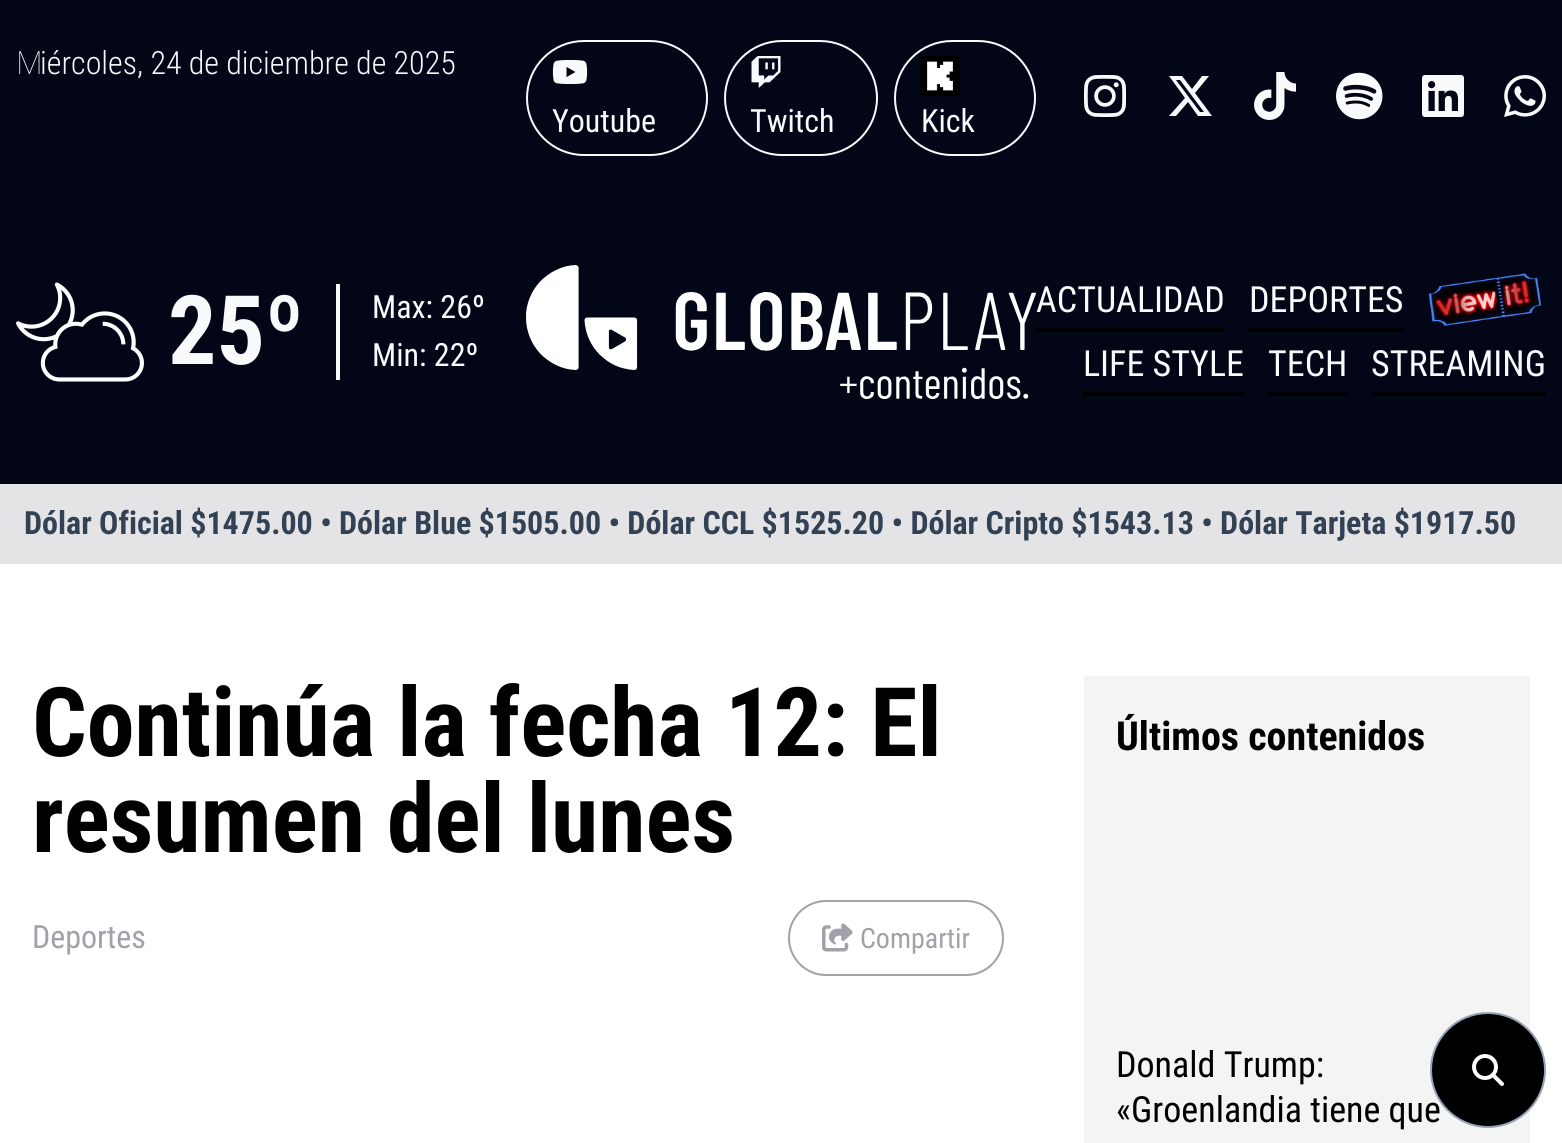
import math
import cairo

surface = cairo.ImageSurface(cairo.Format.RGB24, 1562, 1143)
ctx = cairo.Context(surface)
options = cairo.FontOptions()
options.set_hint_metrics(cairo.HintMetrics.OFF)
options.set_hint_style(cairo.HintStyle.NONE)
ctx.set_font_options(options)
ctx.set_miter_limit(4)


def ink(r, g, b):
    ctx.set_source_rgb(r / 255, g / 255, b / 255)


def write(x, y, s, family, size, color, bold=False, italic=False):
    ctx.select_font_face(family, cairo.FontSlant.ITALIC if italic else cairo.FontSlant.NORMAL, cairo.FontWeight.BOLD if bold else cairo.FontWeight.NORMAL)
    ctx.set_font_size(size)
    ink(*color)
    ctx.move_to(x, y)
    ctx.show_text(s)


def block(x, y, w, h, *color):
    ink(*color)
    ctx.rectangle(x, y, w, h)
    ctx.fill()


def round_path(x, y, w, h, r):
    ctx.new_sub_path()
    for i, (u, v) in enumerate([(x + w - r, y + h - r), (x + r, y + h - r), (x + r, y + r), (x + w - r, y + r)]):
        ctx.arc(u, v, r, i * math.pi / 2, (i + 1) * math.pi / 2)
    ctx.close_path()


def paste(path, x, y, w, h):
    ctx.save()
    ctx.set_source_surface(cairo.ImageSurface.create_from_png(path), x, y)
    ctx.rectangle(x, y, w, h)
    ctx.fill()
    ctx.restore()


s1 = dict(family="Noto Sans Thin", size=32, color=(248, 250, 252))
s2 = dict(family="Roboto Condensed Light", size=32, color=(248, 250, 252))
s3 = dict(family="Roboto Condensed", size=32, color=(248, 250, 252))
s4 = dict(family="Roboto Condensed", size=96, color=(248, 250, 252), bold=True)
s5 = dict(family="Roboto Condensed", size=36, color=(248, 250, 252))
s6 = dict(family="Roboto Condensed", size=32, color=(51, 65, 85), bold=True)
s7 = dict(family="Roboto Condensed", size=96, color=(0, 0, 0), bold=True)
s8 = dict(family="Roboto Condensed", size=32, color=(161, 161, 170))
s9 = dict(family="Roboto Condensed", size=28, color=(161, 161, 170))
s10 = dict(family="Roboto Condensed", size=40, color=(0, 0, 0), bold=True)
s11 = dict(family="Roboto Condensed", size=36, color=(0, 0, 0))

ink(255, 255, 255)
ctx.paint()
block(0, 0, 1562, 484, 2, 6, 23)
write(16, 74, "M", **s1)
write(40, 74, "iércoles, 24 de diciembre de 2025", **s2)
round_path(527, 41, 180, 114, 57)
ctx.stroke()
paste("pic1.png", 552, 60, 36, 24)
write(552, 132, "Youtube", **s3)
round_path(725, 41, 152, 114, 57)
ctx.stroke()
paste("pic2.png", 751, 56, 30, 32)
write(750, 132, "Twitch", **s3)
round_path(895, 41, 140, 114, 57)
ctx.stroke()
paste("pic3.png", 920, 56, 40, 40)
write(921, 132, "Kick", **s3)
paste("pic4.png", 1084, 75, 42, 42)
ctx.new_path()
ctx.move_to(1202, 76)
ctx.line_to(1209, 76)
ctx.line_to(1195, 93)
ctx.line_to(1212, 116)
ctx.line_to(1198, 116)
ctx.line_to(1188, 102)
ctx.line_to(1176, 116)
ctx.line_to(1169, 116)
ctx.line_to(1185, 98)
ctx.line_to(1169, 76)
ctx.line_to(1182, 76)
ctx.line_to(1192, 89)
ctx.close_path()
ctx.move_to(1200, 112)
ctx.line_to(1204, 112)
ctx.line_to(1180, 80)
ctx.line_to(1176, 80)
ctx.close_path()
ctx.fill()
paste("pic5.png", 1254, 72, 42, 48)
paste("pic6.png", 1336, 72, 47, 48)
paste("pic7.png", 1422, 75, 42, 42)
paste("pic8.png", 1504, 75, 42, 42)
paste("pic9.png", 16, 282, 128, 100)
write(168, 364, "25º", **s4)
block(336, 284, 4, 96, 248, 250, 252)
write(372, 318, "Max: 26º", **s3)
write(372, 366, "Min: 22º", **s3)
paste("pic10.png", 526, 265, 510, 134)
write(1036, 312, "ACTUALIDAD", **s5)
block(1036, 328, 188, 4, 0, 0, 0)
write(1249, 312, "DEPORTES", **s5)
block(1248, 328, 156, 4, 0, 0, 0)
paste("pic11.png", 1428, 273, 113, 53)
write(1083, 376, "LIFE STYLE", **s5)
block(1082, 392, 162, 4, 0, 0, 0)
write(1268, 376, "TECH", **s5)
block(1268, 392, 80, 4, 0, 0, 0)
write(1371, 376, "STREAMING", **s5)
block(1372, 392, 174, 4, 0, 0, 0)
block(0, 484, 1562, 80, 228, 228, 231)
write(24, 534, "Dólar Oficial $1475.00 • Dólar Blue $1505.00 • Dólar CCL $1525.20 • Dólar Cripto $1543.13 • Dólar Tarjeta $1917.50", **s6)
write(32, 756, "Continúa la fecha 12: El", **s7)
write(32, 852, "resumen del lunes", **s7)
write(32, 948, "Deportes", **s8)
round_path(789, 901, 214, 74, 37)
ctx.stroke()
paste("pic12.png", 822, 923, 31, 29)
write(860, 948, "Compartir", **s9)
block(1084, 676, 446, 467, 244, 244, 245)
write(1116, 750, "Últimos contenidos", **s10)
write(1116, 1077, "Donald Trump:", **s11)
write(1116, 1122, "«Groenlandia tiene que", **s11)
ctx.new_path()
ctx.arc(1488, 1070, 57, 0, 2 * math.pi)
ctx.fill_preserve()
ink(148, 163, 184)
ctx.stroke()
paste("pic13.png", 1472, 1054, 32, 32)
surface.write_to_png("screenshot.png")
